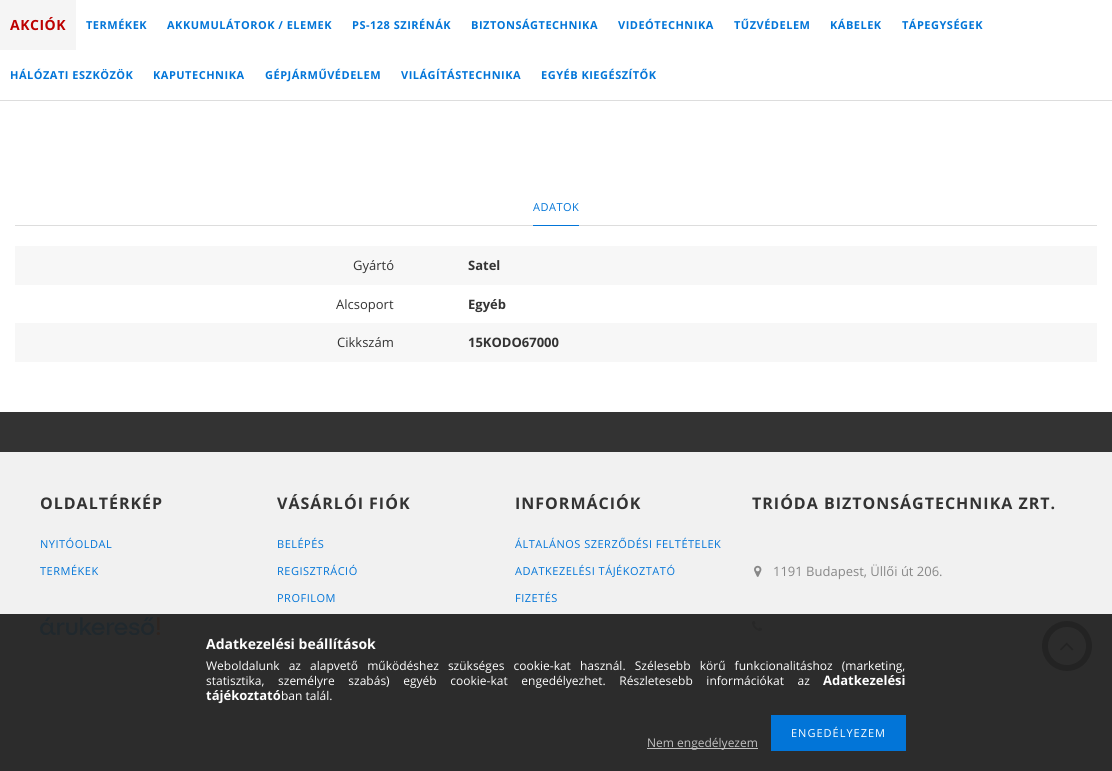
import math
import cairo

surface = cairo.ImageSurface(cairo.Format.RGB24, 1112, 771)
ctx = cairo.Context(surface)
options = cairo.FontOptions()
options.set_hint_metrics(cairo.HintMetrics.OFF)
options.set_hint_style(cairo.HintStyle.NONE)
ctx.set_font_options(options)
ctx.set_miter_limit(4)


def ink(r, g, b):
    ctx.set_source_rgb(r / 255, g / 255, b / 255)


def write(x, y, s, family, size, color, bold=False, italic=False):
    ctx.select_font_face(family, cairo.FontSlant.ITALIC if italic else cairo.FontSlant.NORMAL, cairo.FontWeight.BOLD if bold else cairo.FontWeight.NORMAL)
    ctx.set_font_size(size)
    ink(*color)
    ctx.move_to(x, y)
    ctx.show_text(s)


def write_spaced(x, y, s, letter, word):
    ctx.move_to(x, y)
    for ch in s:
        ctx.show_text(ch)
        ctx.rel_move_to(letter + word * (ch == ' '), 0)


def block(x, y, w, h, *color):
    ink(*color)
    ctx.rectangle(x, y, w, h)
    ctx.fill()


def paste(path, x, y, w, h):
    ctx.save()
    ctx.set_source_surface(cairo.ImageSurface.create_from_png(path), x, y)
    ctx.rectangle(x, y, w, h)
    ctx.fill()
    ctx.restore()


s1 = dict(family="Open Sans", size=13, color=(51, 51, 51))
s2 = dict(family="Open Sans", size=13, color=(51, 51, 51), bold=True)
s3 = dict(family="Open Sans", size=13, color=(136, 136, 136))
s4 = dict(family="Open Sans", size=14, color=(255, 255, 255), bold=True)
s5 = dict(family="Open Sans", size=13, color=(255, 255, 255), bold=True)
s6 = dict(family="Open Sans", size=12, color=(255, 255, 255))
s7 = dict(family="Open Sans", size=12, color=(192, 192, 192))

ink(255, 255, 255)
ctx.paint()
block(0, 100, 1112, 1, 221, 221, 221)
block(0, 0, 76, 50, 245, 245, 245)
ctx.select_font_face("Open Sans", cairo.FontSlant.NORMAL, cairo.FontWeight.BOLD)
ctx.set_font_size(14)
ink(189, 0, 0)
write_spaced(10, 30, "AKCIÓK", 0.5, 0)
ctx.set_font_size(11)
ink(2, 117, 216)
write_spaced(86, 29, "TERMÉKEK", 0.5, 0)
write_spaced(167, 29, "AKKUMULÁTOROK / ELEMEK", 0.5, 0)
write_spaced(352, 29, "PS-128 SZIRÉNÁK", 0.5, 0)
write_spaced(471, 29, "BIZTONSÁGTECHNIKA", 0.5, 0)
write_spaced(618, 29, "VIDEÓTECHNIKA", 0.5, 0)
write_spaced(734, 29, "TŰZVÉDELEM", 0.5, 0)
write_spaced(830, 29, "KÁBELEK", 0.5, 0)
write_spaced(902, 29, "TÁPEGYSÉGEK", 0.5, 0)
write_spaced(10, 79, "HÁLÓZATI ESZKÖZÖK", 0.5, 0)
write_spaced(153, 79, "KAPUTECHNIKA", 0.5, 0)
write_spaced(265, 79, "GÉPJÁRMŰVÉDELEM", 0.5, 0)
write_spaced(401, 79, "VILÁGÍTÁSTECHNIKA", 0.5, 0)
write_spaced(541, 79, "EGYÉB KIEGÉSZÍTŐK", 0.5, 0)
block(15, 225, 1082, 1, 221, 221, 221)
block(533, 225, 46, 1, 2, 117, 216)
ctx.select_font_face("Open Sans")
write_spaced(533, 211, "ADATOK", 0.5, 0)
block(15, 246, 1082, 39, 247, 247, 247)
write(353, 270, "Gyártó", **s1)
write(468, 270, "Satel", **s2)
write(336, 309, "Alcsoport", **s1)
write(468, 309, "Egyéb", **s2)
block(15, 323, 1082, 39, 247, 247, 247)
write(337, 347, "Cikkszám", **s1)
write(468, 347, "15KODO67000", **s2)
block(0, 412, 1112, 40, 51, 51, 51)
block(0, 452, 1112, 162, 241, 241, 241)
block(0, 614, 1112, 157, 44, 44, 44)
ctx.set_font_size(16)
ink(51, 51, 51)
write_spaced(40, 509, "OLDALTÉRKÉP", 1, 0)
ctx.select_font_face("Open Sans")
ctx.set_font_size(11)
ink(2, 117, 216)
write_spaced(40, 548, "NYITÓOLDAL", 0.5, 0)
write_spaced(40, 575, "TERMÉKEK", 0.5, 0)
paste("pic1.png", 40, 617, 120, 18)
ctx.select_font_face("Open Sans", cairo.FontSlant.NORMAL, cairo.FontWeight.BOLD)
ctx.set_font_size(16)
ink(51, 51, 51)
write_spaced(277, 509, "VÁSÁRLÓI FIÓK", 1, 0)
ctx.select_font_face("Open Sans")
ctx.set_font_size(11)
ink(2, 117, 216)
write_spaced(277, 548, "BELÉPÉS", 0.5, 0)
write_spaced(277, 575, "REGISZTRÁCIÓ", 0.5, 0)
write_spaced(277, 602, "PROFILOM", 0.5, 0)
ctx.select_font_face("Open Sans", cairo.FontSlant.NORMAL, cairo.FontWeight.BOLD)
ctx.set_font_size(16)
ink(51, 51, 51)
write_spaced(515, 509, "INFORMÁCIÓK", 1, 0)
ctx.select_font_face("Open Sans")
ctx.set_font_size(11)
ink(2, 117, 216)
write_spaced(515, 548, "ÁLTALÁNOS SZERZŐDÉSI FELTÉTELEK", 0.5, 0)
write_spaced(515, 575, "ADATKEZELÉSI TÁJÉKOZTATÓ", 0.5, 0)
write_spaced(515, 602, "FIZETÉS", 0.5, 0)
ctx.select_font_face("Open Sans", cairo.FontSlant.NORMAL, cairo.FontWeight.BOLD)
ctx.set_font_size(16)
ink(51, 51, 51)
write_spaced(752, 509, "TRIÓDA BIZTONSÁGTECHNIKA ZRT.", 1, 0)
paste("pic2.png", 754, 565, 8, 12)
write(773, 576, "1191 Budapest, Üllői út 206.", **s3)
paste("pic3.png", 752, 620, 11, 11)
paste("pic4.png", 752, 677, 11, 9)
write(206, 649, "Adatkezelési beállítások", **s4)
ctx.select_font_face("Open Sans")
ctx.set_font_size(12)
write_spaced(206, 670, "Weboldalunk az alapvető működéshez szükséges cookie-kat használ. Szélesebb körű funkcionalitáshoz (marketing,", 0, 6)
write_spaced(206, 685, "statisztika, személyre szabás) egyéb cookie-kat engedélyezhet. Részletesebb információkat az", 0, 10.5)
write(823, 685, "Adatkezelési", **s5)
write(206, 700, "tájékoztató", **s5)
write(281, 700, "ban talál.", **s6)
block(771, 715, 135, 36, 2, 117, 216)
ctx.set_font_size(11)
ink(255, 255, 255)
write_spaced(791, 737, "ENGEDÉLYEZEM", 1, 0)
block(647, 748, 111, 1, 192, 192, 192)
write(647, 747, "Nem engedélyezem", **s7)
ctx.new_path()
ctx.arc(1067, 646, 22, 0, 2 * math.pi)
ink(35, 35, 35)
ctx.set_line_width(6)
ctx.stroke()
paste("pic5.png", 1060, 642, 14, 9)
surface.write_to_png("screenshot.png")
